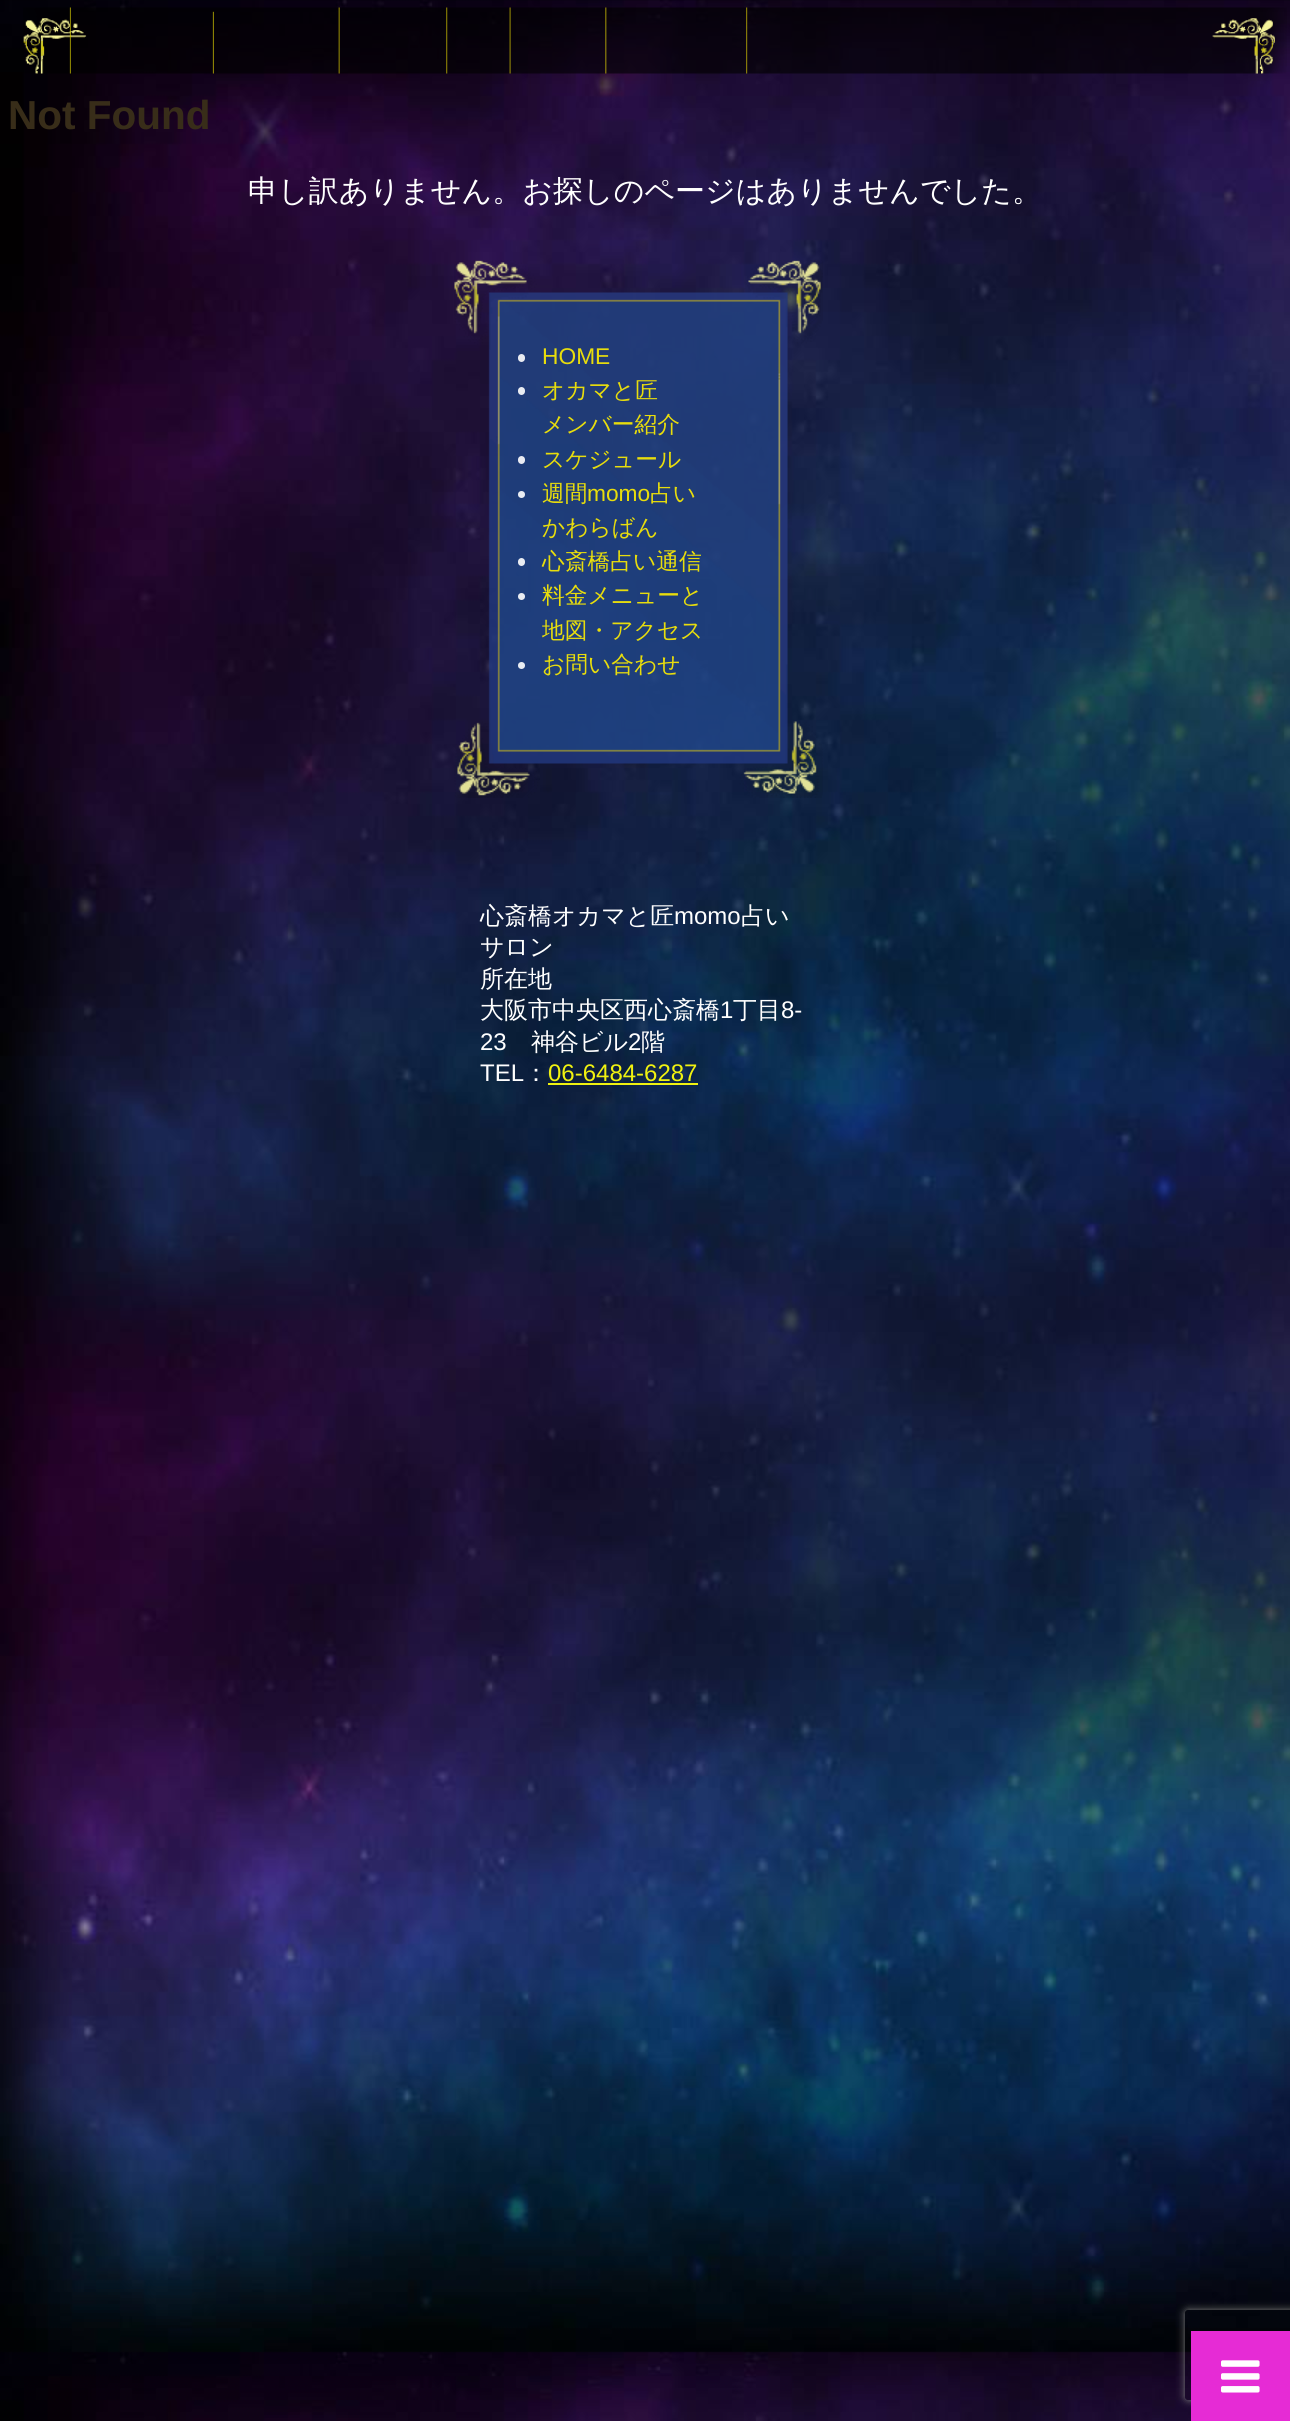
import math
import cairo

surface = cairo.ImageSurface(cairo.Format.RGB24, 1290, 2421)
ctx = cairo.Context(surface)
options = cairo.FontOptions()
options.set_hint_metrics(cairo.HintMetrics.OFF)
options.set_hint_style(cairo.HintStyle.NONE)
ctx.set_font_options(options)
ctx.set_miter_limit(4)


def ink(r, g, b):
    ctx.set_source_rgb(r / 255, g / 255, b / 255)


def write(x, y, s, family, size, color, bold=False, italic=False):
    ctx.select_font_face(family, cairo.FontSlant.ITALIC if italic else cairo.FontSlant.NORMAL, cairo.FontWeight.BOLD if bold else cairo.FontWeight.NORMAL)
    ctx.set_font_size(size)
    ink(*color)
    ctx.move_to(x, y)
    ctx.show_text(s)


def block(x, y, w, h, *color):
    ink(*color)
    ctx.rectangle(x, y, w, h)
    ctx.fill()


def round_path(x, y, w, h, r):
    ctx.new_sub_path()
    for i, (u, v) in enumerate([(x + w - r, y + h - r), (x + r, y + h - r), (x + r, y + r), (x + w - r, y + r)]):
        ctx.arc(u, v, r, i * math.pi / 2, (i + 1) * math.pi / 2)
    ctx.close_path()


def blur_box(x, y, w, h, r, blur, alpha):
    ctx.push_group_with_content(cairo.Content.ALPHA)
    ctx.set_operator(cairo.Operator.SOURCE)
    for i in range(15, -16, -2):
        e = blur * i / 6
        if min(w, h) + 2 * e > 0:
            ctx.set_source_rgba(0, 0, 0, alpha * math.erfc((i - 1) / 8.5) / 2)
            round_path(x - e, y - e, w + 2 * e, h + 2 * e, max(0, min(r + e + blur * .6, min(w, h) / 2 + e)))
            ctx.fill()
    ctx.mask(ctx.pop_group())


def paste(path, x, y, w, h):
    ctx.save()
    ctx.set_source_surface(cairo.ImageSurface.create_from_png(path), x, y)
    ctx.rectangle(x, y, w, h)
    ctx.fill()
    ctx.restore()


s1 = dict(family="Liberation Sans", size=40.5, color=(56, 45, 25), bold=True)
s2 = dict(family="WenQuanYi Zen Hei Medium", size=30, color=(255, 255, 255))
s3 = dict(family="Liberation Sans", size=22.75, color=(232, 221, 12))
s4 = dict(family="WenQuanYi Zen Hei Medium", size=22.75, color=(232, 221, 12))
s5 = dict(family="WenQuanYi Zen Hei Medium", size=24, color=(255, 255, 255))
s6 = dict(family="Liberation Sans", size=24, color=(255, 255, 255))
s7 = dict(family="Liberation Sans", size=24, color=(240, 242, 16))

ink(255, 255, 255)
ctx.paint()
paste("pic1.png", 0, 0, 1290, 2421)
paste("pic2.png", 23, 7, 1264, 67)
ctx.save()
ctx.set_fill_rule(cairo.FillRule.EVEN_ODD)
ctx.new_path()
ctx.move_to(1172, 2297)
ctx.line_to(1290, 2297)
ctx.line_to(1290, 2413)
ctx.line_to(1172, 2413)
ctx.close_path()
ctx.move_to(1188, 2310)
ctx.line_to(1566, 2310)
ctx.curve_to(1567.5, 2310, 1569, 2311.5, 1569, 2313)
ctx.line_to(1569, 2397)
ctx.curve_to(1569, 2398.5, 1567.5, 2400, 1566, 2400)
ctx.line_to(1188, 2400)
ctx.curve_to(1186.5, 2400, 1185, 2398.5, 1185, 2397)
ctx.line_to(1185, 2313)
ctx.curve_to(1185, 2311.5, 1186.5, 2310, 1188, 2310)
ctx.close_path()
ctx.clip()
ink(128, 128, 128)
blur_box(1185, 2310, 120, 90, 3, 4, 1)
ctx.restore()
block(1191, 2331, 99, 90, 230, 43, 213)
paste("pic3.png", 1221, 2360, 39, 33)
write(8, 129, "Not Found", **s1)
write(248, 201, "申し訳ありません。お探しのページはありませんでした。", **s2)
paste("pic4.png", 454, 260, 369, 538)
ink(233, 235, 241)
round_path(518, 354, 7, 8, 3.5)
ctx.fill()
write(542, 364, "HOME", **s3)
ctx.set_source_rgba(1, 1, 1, 0.9)
round_path(518, 387, 7, 8, 3.5)
ctx.fill()
write(542, 398, "オカマと匠", **s4)
write(542, 432, "メンバー紹介", **s4)
ink(233, 235, 242)
round_path(518, 456, 7, 8, 3.5)
ctx.fill()
write(542, 467, "スケジュール", **s4)
ink(233, 236, 242)
ctx.new_path()
ctx.arc(521.5, 494.5, 3.5, 0, 2 * math.pi)
ctx.fill()
write(542, 501, "週間", **s4)
write(587, 501, "momo", **s3)
write(650, 501, "占い", **s4)
write(542, 535, "かわらばん", **s4)
ink(233, 236, 242)
round_path(518, 558, 7, 8, 3.5)
ctx.fill()
write(542, 569, "心斎橋占い通信", **s4)
ink(233, 236, 242)
ctx.new_path()
ctx.arc(521.5, 596.5, 3.5, 0, 2 * math.pi)
ctx.fill()
write(542, 603, "料金メニューと", **s4)
write(542, 638, "地図・アクセス", **s4)
ink(233, 236, 242)
ctx.new_path()
ctx.arc(521.5, 665.5, 3.5, 0, 2 * math.pi)
ctx.fill()
write(542, 672, "お問い合わせ", **s4)
write(480, 924, "心斎橋オカマと匠", **s5)
write(674, 924, "momo", **s6)
write(741, 924, "占い", **s5)
write(480, 955, "サロン", **s5)
write(480, 987, "所在地", **s5)
write(480, 1018, "大阪市中央区西心斎橋", **s5)
write(720, 1018, "1", **s6)
write(733, 1018, "丁目", **s5)
write(781, 1018, "8-", **s6)
write(480, 1050, "23", **s6)
write(531, 1050, "神谷ビル", **s5)
write(628, 1050, "2", **s6)
write(641, 1050, "階", **s5)
write(480, 1081, "TEL", **s6)
write(524, 1081, "：", **s5)
write(548, 1081, "06-6484-6287", **s7)
block(548, 1083, 150, 2, 240, 242, 16)
surface.write_to_png("screenshot.png")
